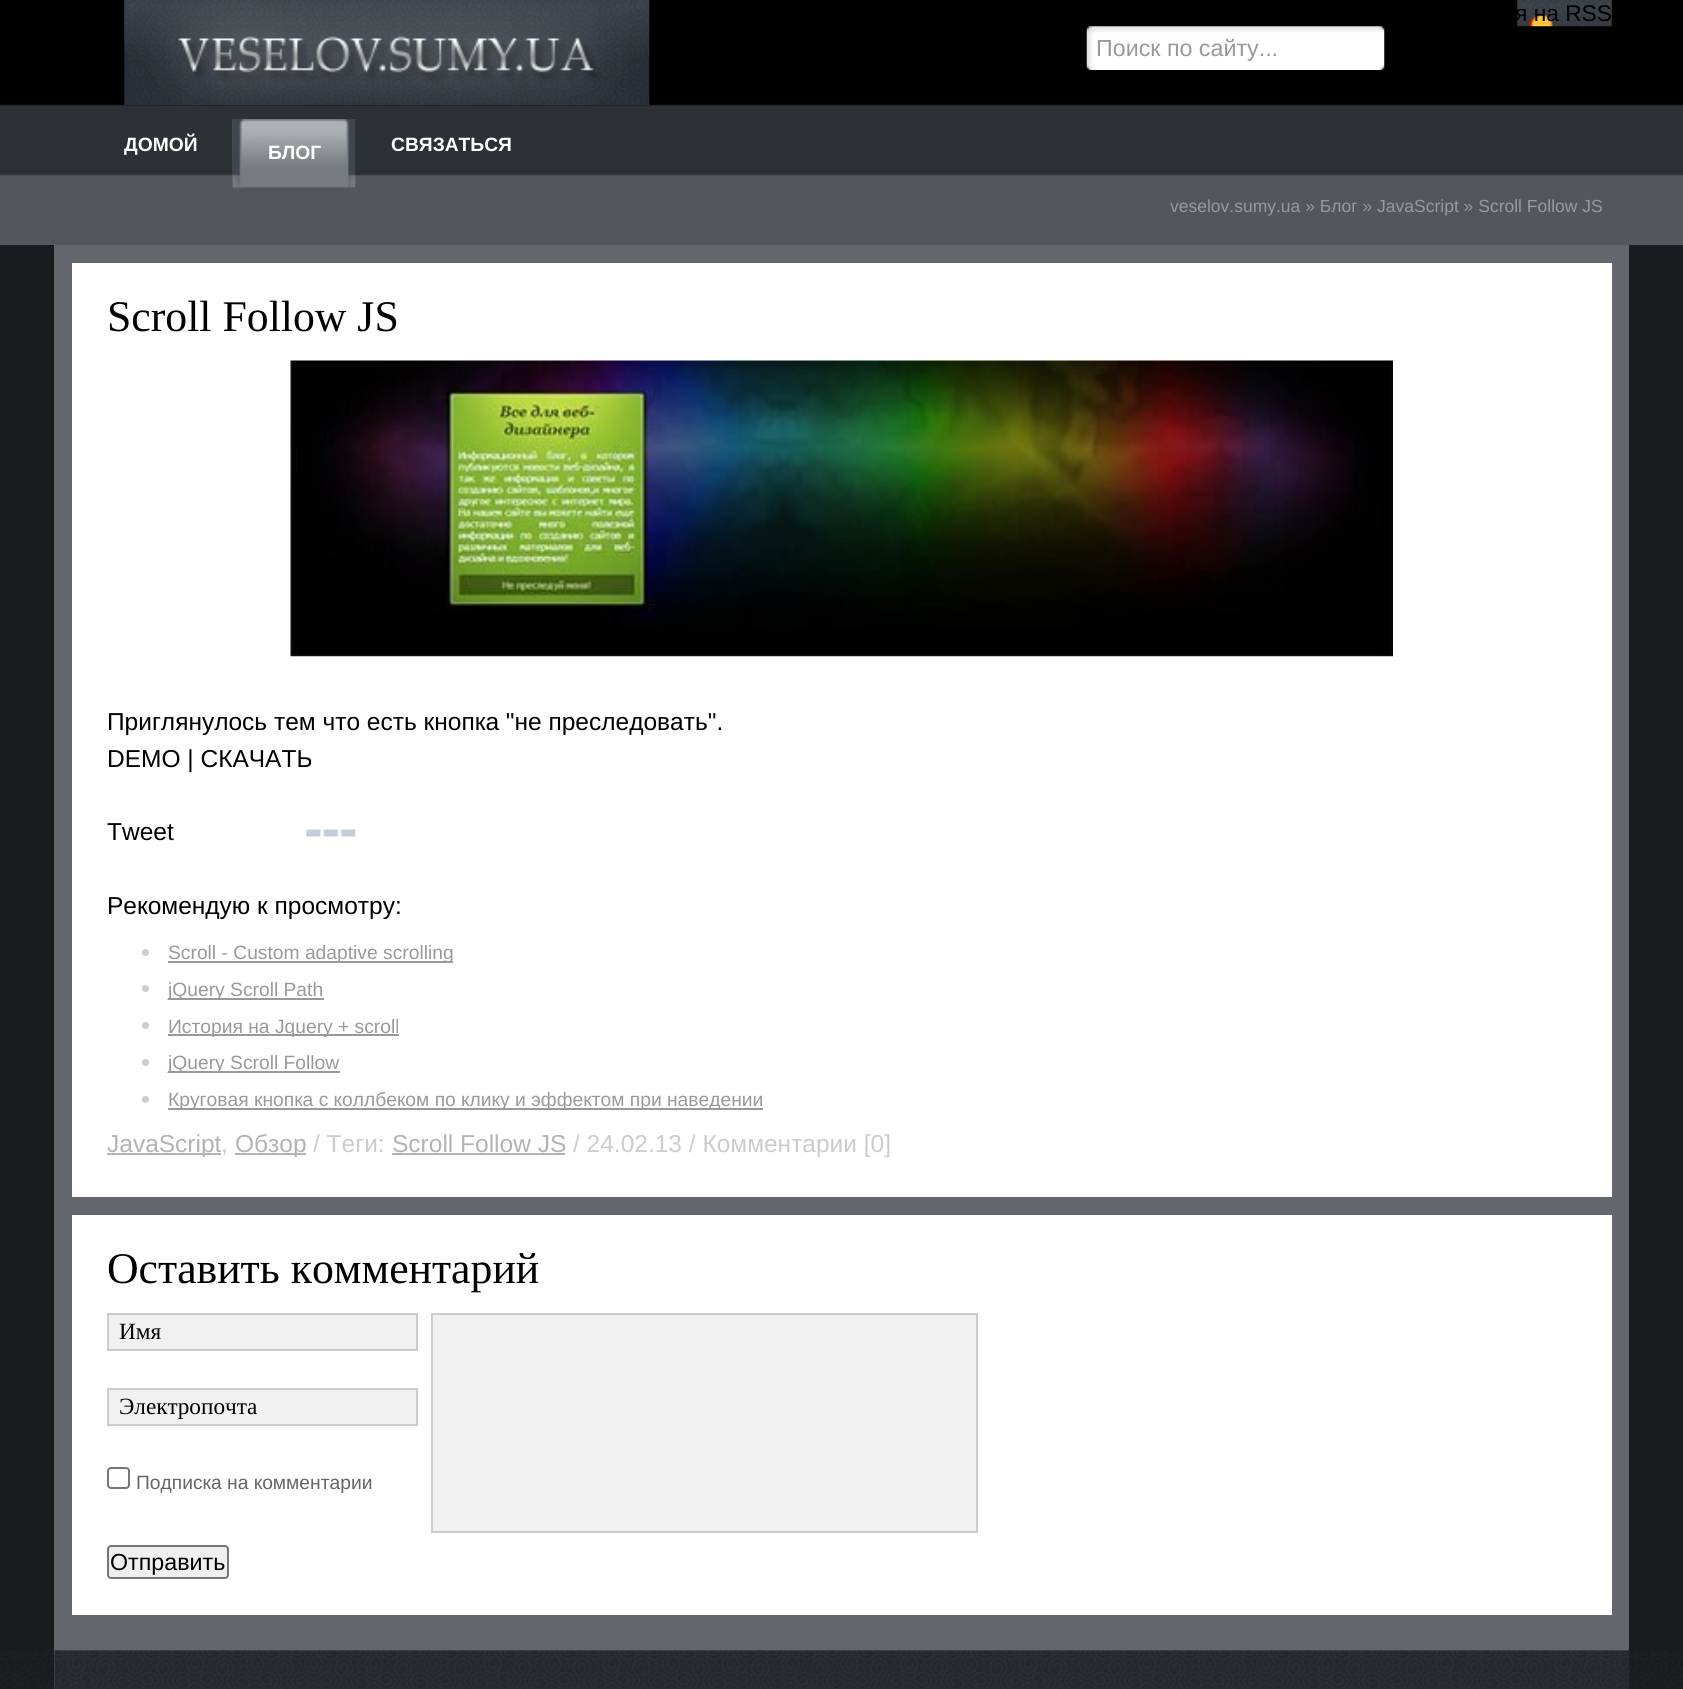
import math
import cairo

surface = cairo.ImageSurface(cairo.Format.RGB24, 1683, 1689)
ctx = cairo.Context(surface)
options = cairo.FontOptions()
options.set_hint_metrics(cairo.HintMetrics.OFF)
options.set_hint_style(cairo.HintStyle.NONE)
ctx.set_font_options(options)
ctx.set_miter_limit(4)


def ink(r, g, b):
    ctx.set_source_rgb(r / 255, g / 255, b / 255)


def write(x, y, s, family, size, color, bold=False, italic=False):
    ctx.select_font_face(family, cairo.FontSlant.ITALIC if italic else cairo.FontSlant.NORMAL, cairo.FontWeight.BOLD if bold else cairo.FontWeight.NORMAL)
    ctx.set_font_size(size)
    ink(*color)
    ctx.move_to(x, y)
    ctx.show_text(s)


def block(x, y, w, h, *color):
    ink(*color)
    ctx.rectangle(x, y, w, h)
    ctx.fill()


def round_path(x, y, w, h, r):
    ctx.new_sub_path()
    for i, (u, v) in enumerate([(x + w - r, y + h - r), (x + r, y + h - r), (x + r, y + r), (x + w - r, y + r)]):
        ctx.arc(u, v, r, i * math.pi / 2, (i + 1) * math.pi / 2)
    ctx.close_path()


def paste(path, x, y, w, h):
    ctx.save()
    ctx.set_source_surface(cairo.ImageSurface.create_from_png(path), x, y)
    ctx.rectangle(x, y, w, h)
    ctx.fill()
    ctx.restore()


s1 = dict(family="Liberation Sans", size=22.75, color=(0, 0, 0))
s2 = dict(family="Liberation Sans", size=23.25, color=(153, 153, 153))
s3 = dict(family="Liberation Sans", size=19.25, color=(255, 255, 255), bold=True)
s4 = dict(family="Liberation Sans", size=17.5, color=(153, 153, 153))
s5 = dict(family="Liberation Serif", size=43.75, color=(0, 0, 0))
s6 = dict(family="Liberation Sans", size=24.5, color=(0, 0, 0))
s7 = dict(family="Liberation Sans", size=19.25, color=(153, 153, 153))
s8 = dict(family="Liberation Sans", size=24.5, color=(179, 179, 179))
s9 = dict(family="Liberation Sans", size=24.5, color=(204, 204, 204))
s10 = dict(family="Liberation Serif", size=23.25, color=(0, 0, 0))
s11 = dict(family="Liberation Sans", size=19.25, color=(102, 102, 102))
s12 = dict(family="Liberation Sans", size=23.25, color=(0, 0, 0))

ink(26, 27, 31)
ctx.paint()
paste("pic1.png", 0, 0, 1683, 245)
paste("pic2.png", 124, 0, 526, 105)
paste("pic3.png", 1517, 0, 95, 27)
write(1515, 21, "я на RSS", **s1)
paste("pic4.png", 1086, 26, 299, 44)
write(1096, 56, "Поиск по сайту...", **s2)
write(124, 151, "ДОМОЙ", **s3)
paste("pic5.png", 232, 119, 124, 69)
paste("pic6.png", 232, 119, 13, 69)
write(268, 159, "БЛОГ", **s3)
write(391, 151, "СВЯЗАТЬСЯ", **s3)
write(1170, 212, "veselov.sumy.ua » Блог » JavaScript » Scroll Follow JS", **s4)
block(54, 245, 1575, 1405, 99, 102, 108)
block(72, 263, 1540, 934, 255, 255, 255)
write(107, 331, "Scroll Follow JS", **s5)
paste("pic7.png", 290, 360, 1103, 297)
write(107, 730, "Приглянулось тем что есть кнопка \"не преследовать\".", **s6)
write(107, 767, "DEMO | СКАЧАТЬ", **s6)
write(107, 840, "Tweet", **s6)
paste("pic8.png", 306, 829, 50, 8)
write(107, 914, "Рекомендую к просмотру:", **s6)
ink(204, 204, 204)
ctx.new_path()
ctx.arc(145.5, 952.5, 3.5, 0, 2 * math.pi)
ctx.fill()
block(168, 961, 285, 2, 153, 153, 153)
write(168, 959, "Scroll - Custom adaptive scrolling", **s7)
ink(204, 204, 204)
ctx.new_path()
ctx.arc(145.5, 988.5, 3.5, 0, 2 * math.pi)
ctx.fill()
block(168, 998, 156, 2, 153, 153, 153)
write(168, 996, "jQuery Scroll Path", **s7)
ink(204, 204, 204)
ctx.new_path()
ctx.arc(145.5, 1025.5, 3.5, 0, 2 * math.pi)
ctx.fill()
block(168, 1034, 231, 2, 153, 153, 153)
write(168, 1033, "История на Jquery + scroll", **s7)
ink(204, 204, 204)
ctx.new_path()
ctx.arc(145.5, 1062.5, 3.5, 0, 2 * math.pi)
ctx.fill()
block(168, 1071, 172, 2, 153, 153, 153)
write(168, 1069, "jQuery Scroll Follow", **s7)
ink(204, 204, 204)
ctx.new_path()
ctx.arc(145.5, 1099.5, 3.5, 0, 2 * math.pi)
ctx.fill()
block(168, 1108, 595, 2, 153, 153, 153)
write(168, 1106, "Круговая кнопка с коллбеком по клику и эффектом при наведении", **s7)
block(107, 1153, 114, 2, 179, 179, 179)
write(107, 1152, "JavaScript", **s8)
write(221, 1152, ",", **s9)
block(235, 1153, 71, 2, 179, 179, 179)
write(235, 1152, "Обзор", **s8)
write(313, 1152, "/ Теги:", **s9)
write(392, 1152, "Scroll Follow JS", **s8)
block(392, 1153, 173, 2, 179, 179, 179)
write(573, 1152, "/ 24.02.13 / Комментарии [0]", **s9)
block(72, 1215, 1540, 400, 255, 255, 255)
write(107, 1283, "Оставить комментарий", **s5)
ink(240, 240, 240)
ctx.rectangle(108, 1314, 309, 36)
ctx.fill_preserve()
ink(204, 204, 204)
ctx.stroke()
write(119, 1339, "Имя", **s10)
ink(240, 240, 240)
ctx.rectangle(108, 1389, 309, 36)
ctx.fill_preserve()
ink(204, 204, 204)
ctx.stroke()
write(119, 1414, "Электропочта", **s10)
round_path(108, 1468, 21, 20, 3)
ink(118, 118, 118)
ctx.stroke()
write(136, 1489, "Подписка на комментарии", **s11)
ink(240, 240, 240)
ctx.rectangle(432, 1314, 545, 218)
ctx.fill_preserve()
ink(204, 204, 204)
ctx.stroke()
ink(239, 239, 239)
round_path(108, 1546, 120, 32, 3)
ctx.fill_preserve()
ink(118, 118, 118)
ctx.stroke()
write(110, 1570, "Отправить", **s12)
paste("pic9.png", 0, 1650, 1683, 39)
block(54, 1650, 1575, 39, 119, 127, 129)
paste("pic10.png", 54, 1650, 1576, 39)
surface.write_to_png("screenshot.png")
